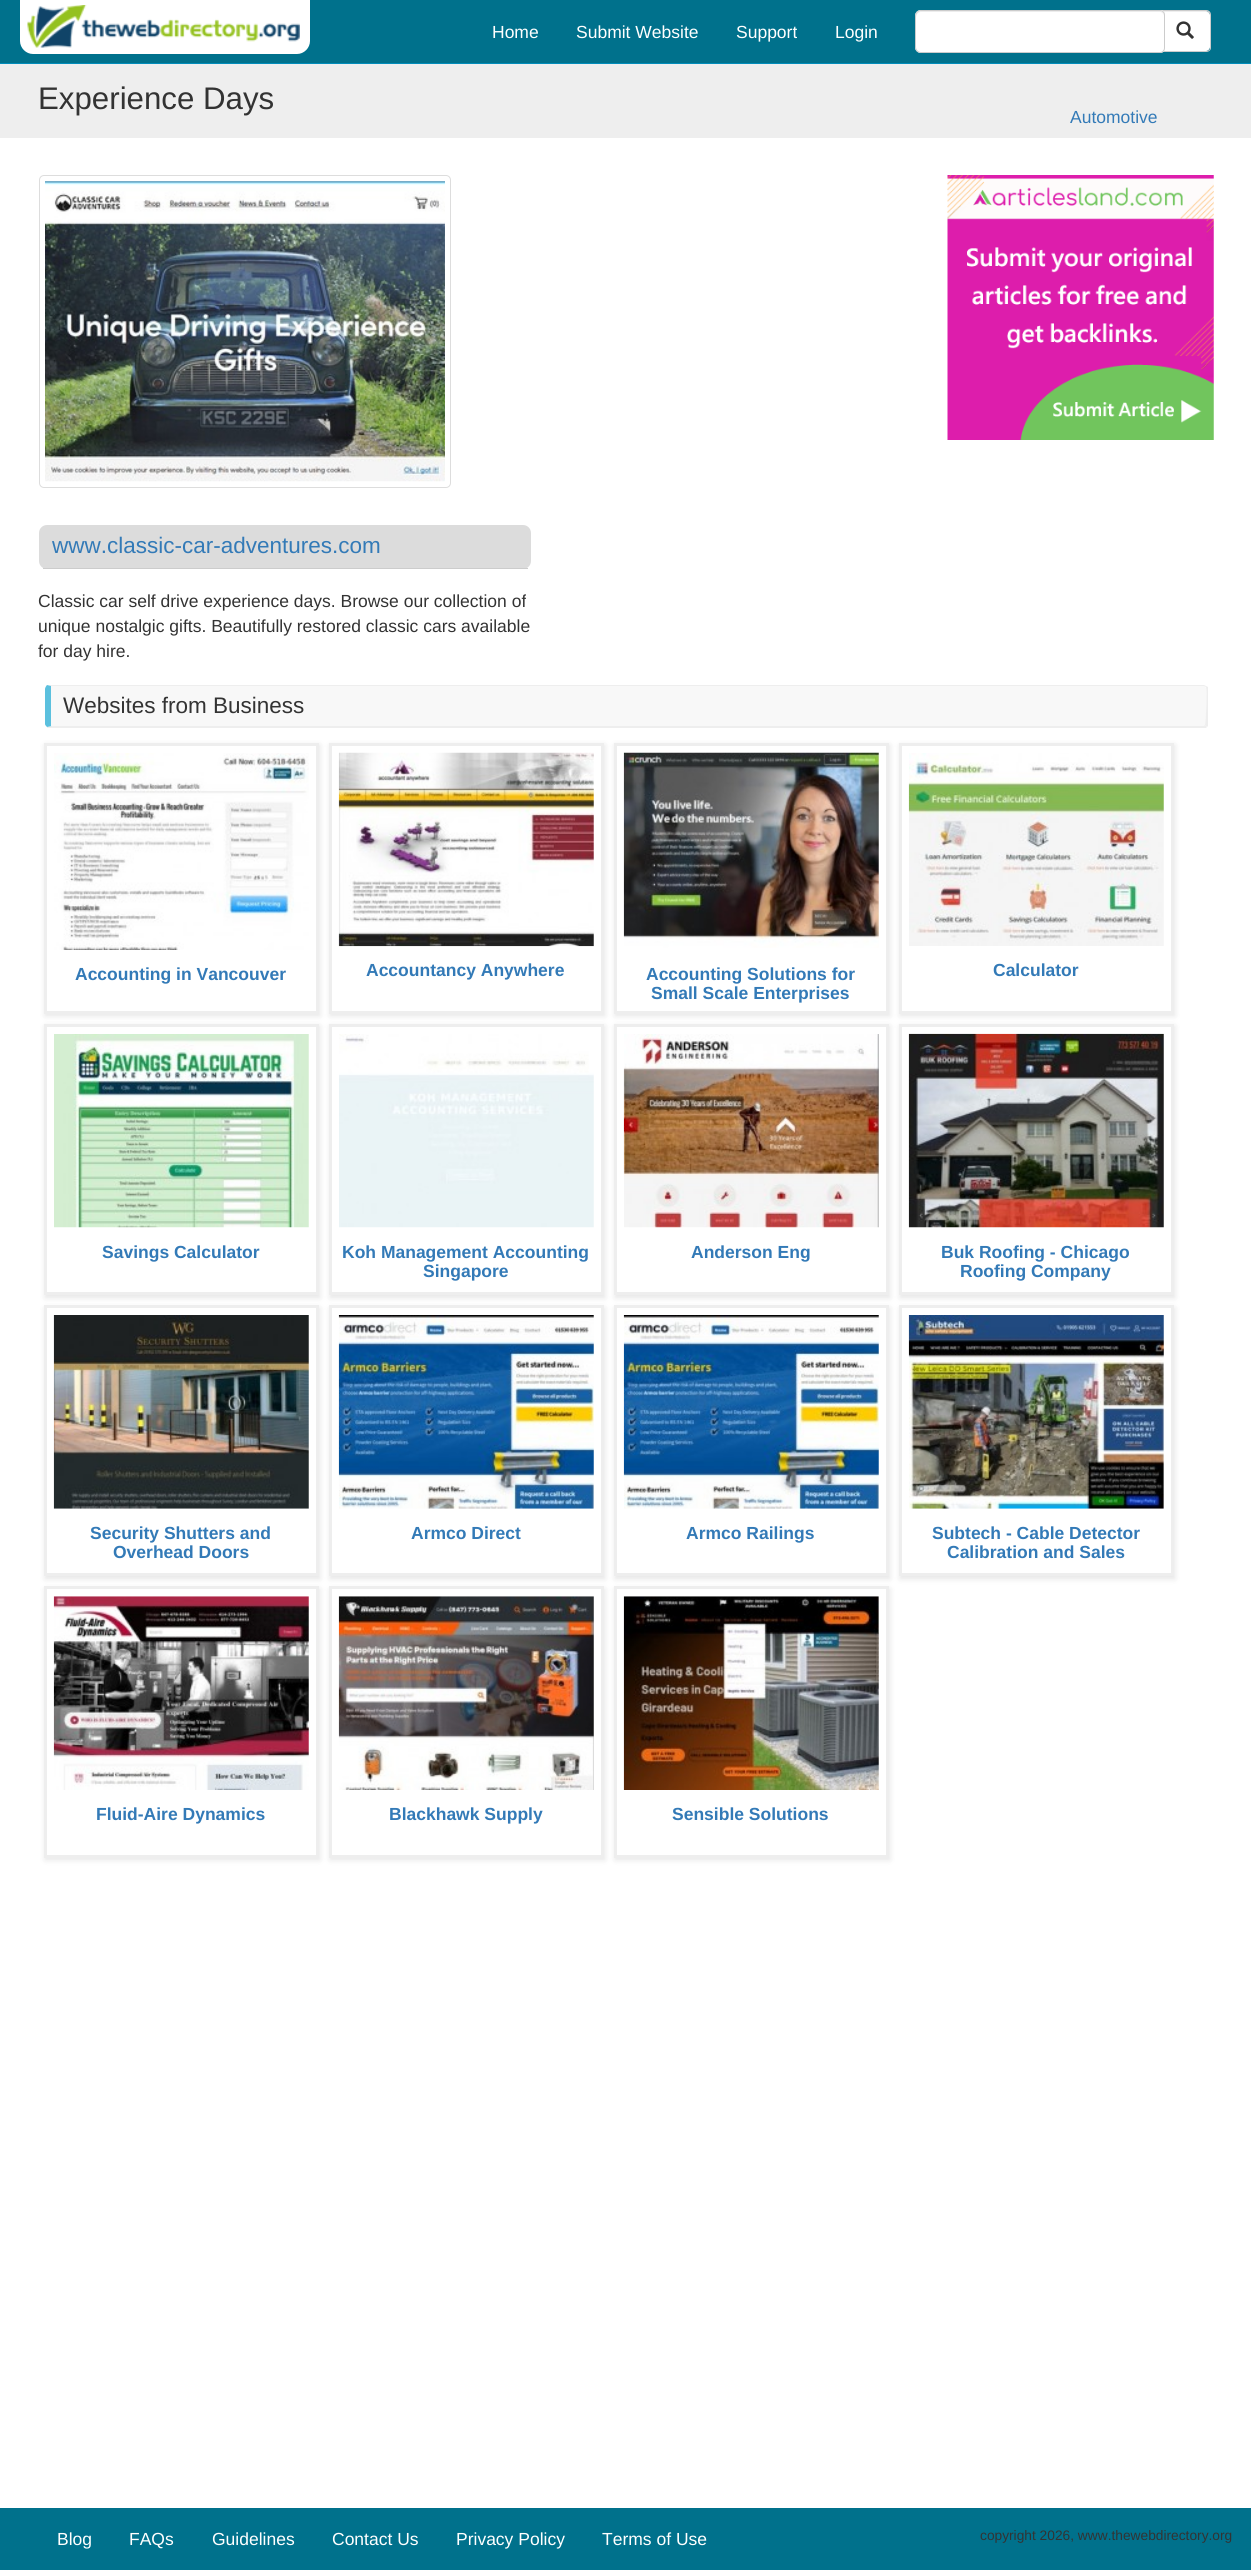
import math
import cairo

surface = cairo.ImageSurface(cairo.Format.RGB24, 1251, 2570)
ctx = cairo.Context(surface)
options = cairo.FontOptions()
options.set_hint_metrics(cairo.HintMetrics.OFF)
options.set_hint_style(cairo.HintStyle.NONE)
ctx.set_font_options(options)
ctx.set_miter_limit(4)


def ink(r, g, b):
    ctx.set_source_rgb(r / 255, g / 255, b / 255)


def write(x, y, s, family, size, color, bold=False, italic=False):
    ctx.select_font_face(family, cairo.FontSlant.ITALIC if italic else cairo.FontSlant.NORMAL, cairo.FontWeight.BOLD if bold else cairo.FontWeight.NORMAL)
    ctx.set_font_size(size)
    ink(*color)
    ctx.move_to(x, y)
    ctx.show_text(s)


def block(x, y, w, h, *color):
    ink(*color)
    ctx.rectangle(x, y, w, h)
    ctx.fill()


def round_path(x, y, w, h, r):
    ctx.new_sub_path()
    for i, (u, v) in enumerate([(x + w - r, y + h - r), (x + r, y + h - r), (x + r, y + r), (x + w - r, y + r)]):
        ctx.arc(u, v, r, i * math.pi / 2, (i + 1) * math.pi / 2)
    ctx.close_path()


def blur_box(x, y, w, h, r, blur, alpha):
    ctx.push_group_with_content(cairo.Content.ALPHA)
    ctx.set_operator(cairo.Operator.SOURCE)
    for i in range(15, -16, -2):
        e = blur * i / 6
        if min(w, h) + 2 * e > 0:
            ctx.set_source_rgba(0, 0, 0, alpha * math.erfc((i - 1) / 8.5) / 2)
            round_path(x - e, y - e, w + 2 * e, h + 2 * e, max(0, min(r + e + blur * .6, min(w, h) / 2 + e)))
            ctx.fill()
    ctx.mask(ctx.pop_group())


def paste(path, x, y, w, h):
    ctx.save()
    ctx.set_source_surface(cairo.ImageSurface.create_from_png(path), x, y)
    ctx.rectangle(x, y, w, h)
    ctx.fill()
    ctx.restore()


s1 = dict(family="Liberation Sans", size=17.5, color=(255, 255, 255))
s2 = dict(family="Liberation Sans", size=31.25, color=(51, 51, 51))
s3 = dict(family="Liberation Sans", size=17.5, color=(51, 122, 183))
s4 = dict(family="Liberation Sans", size=22.5, color=(51, 122, 183))
s5 = dict(family="Liberation Sans", size=17.5, color=(51, 51, 51))
s6 = dict(family="Liberation Sans", size=22.5, color=(51, 51, 51))
s7 = dict(family="Liberation Sans", size=17.5, color=(51, 122, 183), bold=True)
s8 = dict(family="Liberation Sans", size=13.75, color=(51, 51, 51))

ink(255, 255, 255)
ctx.paint()
block(0, 0, 1251, 63, 0, 113, 140)
block(0, 63, 1251, 1, 0, 140, 186)
ink(255, 255, 255)
ctx.new_path()
ctx.move_to(20, 0)
ctx.line_to(310, 0)
ctx.line_to(310, 41)
ctx.curve_to(310, 48, 304, 54, 297, 54)
ctx.line_to(33, 54)
ctx.curve_to(26, 54, 20, 48, 20, 41)
ctx.close_path()
ctx.fill()
paste("pic1.png", 27, 5, 273, 43)
write(492, 38, "Home", **s1)
write(576, 38, "Submit Website", **s1)
write(736, 38, "Support", **s1)
write(835, 38, "Login", **s1)
ctx.new_path()
ctx.move_to(1161, 11)
ctx.line_to(1206, 11)
ctx.curve_to(1208, 11, 1210, 13, 1210, 15)
ctx.line_to(1210, 47)
ctx.curve_to(1210, 49, 1208, 51, 1206, 51)
ctx.line_to(1161, 51)
ctx.close_path()
ctx.fill()
ctx.set_source_rgba(0, 0, 0, 0.07)
ctx.new_path()
ctx.move_to(1161, 12)
ctx.line_to(1206, 12)
ctx.curve_to(1208, 12, 1210, 14, 1210, 16)
ctx.line_to(1210, 15)
ctx.curve_to(1210, 13, 1208, 11, 1206, 11)
ctx.line_to(1161, 11)
ctx.close_path()
ctx.fill()
ink(204, 204, 204)
ctx.set_fill_rule(cairo.FillRule.EVEN_ODD)
ctx.new_path()
ctx.move_to(1161, 10)
ctx.line_to(1206, 10)
ctx.curve_to(1209, 10, 1211, 12, 1211, 15)
ctx.line_to(1211, 48)
ctx.curve_to(1211, 50, 1209, 52, 1206, 52)
ctx.line_to(1161, 52)
ctx.close_path()
ctx.move_to(1161, 11)
ctx.line_to(1206, 11)
ctx.curve_to(1208, 11, 1210, 13, 1210, 15)
ctx.line_to(1210, 48)
ctx.curve_to(1210, 50, 1208, 51, 1206, 51)
ctx.line_to(1161, 51)
ctx.close_path()
ctx.fill()
ink(255, 255, 255)
ctx.new_path()
ctx.move_to(921, 10)
ctx.line_to(1160, 10)
ctx.curve_to(1163, 10, 1165, 12, 1165, 15)
ctx.line_to(1165, 48)
ctx.curve_to(1165, 51, 1163, 53, 1160, 53)
ctx.line_to(921, 53)
ctx.curve_to(917.5, 53, 915, 50.5, 915, 47)
ctx.line_to(915, 16)
ctx.curve_to(915, 12.5, 917.5, 10, 921, 10)
ctx.close_path()
ctx.fill()
ink(236, 236, 236)
ctx.set_fill_rule(cairo.FillRule.WINDING)
ctx.new_path()
ctx.move_to(921, 12)
ctx.line_to(1160, 12)
ctx.curve_to(1162, 12, 1164, 14, 1164, 16)
ctx.line_to(1164, 15)
ctx.curve_to(1164, 13, 1162, 11, 1160, 11)
ctx.line_to(921, 11)
ctx.curve_to(918, 11, 916, 13, 916, 16)
ctx.line_to(916, 18)
ctx.curve_to(916, 15, 918, 12, 921, 12)
ctx.close_path()
ctx.fill()
ctx.new_path()
ctx.move_to(921, 10.5)
ctx.line_to(1160, 10.5)
ctx.curve_to(1162.5, 10.5, 1164.5, 12.5, 1164.5, 15)
ctx.line_to(1164.5, 48)
ctx.curve_to(1164.5, 50.5, 1162.5, 52.5, 1160, 52.5)
ctx.line_to(921, 52.5)
ctx.curve_to(918, 52.5, 915.5, 50, 915.5, 47)
ctx.line_to(915.5, 16)
ctx.curve_to(915.5, 13, 918, 10.5, 921, 10.5)
ctx.close_path()
ink(204, 204, 204)
ctx.set_line_width(1)
ctx.stroke()
paste("pic2.png", 1176, 21, 18, 18)
block(0, 64, 1251, 74, 238, 238, 238)
write(38, 109, "Experience Days", **s2)
write(1070, 123, "Automotive", **s3)
paste("pic3.png", 947, 175, 267, 265)
round_path(39.5, 175.5, 411, 312, 4.5)
ink(221, 221, 221)
ctx.stroke()
paste("pic4.png", 45, 181, 400, 301)
ink(220, 220, 220)
round_path(39, 525, 492, 44, 8)
ctx.fill()
block(43, 568, 485, 1, 204, 204, 204)
write(52, 553, "www.classic-car-adventures.com", **s4)
write(38, 607, "Classic car self drive experience days. Browse our collection of", **s5)
write(38, 632, "unique nostalgic gifts. Beautifully restored classic cars available", **s5)
write(38, 657, "for day hire.", **s5)
ink(248, 248, 248)
ctx.new_path()
ctx.move_to(51, 686)
ctx.line_to(1204, 686)
ctx.curve_to(1205, 686, 1206, 687, 1206, 689)
ctx.line_to(1206, 724)
ctx.curve_to(1206, 725, 1205, 726, 1204, 726)
ctx.line_to(51, 726)
ctx.close_path()
ctx.fill()
ink(238, 238, 238)
ctx.new_path()
ctx.move_to(49, 685)
ctx.line_to(47, 685)
ctx.line_to(51, 686)
ctx.line_to(1204, 686)
ctx.line_to(1206, 687)
ctx.line_to(1206, 686)
ctx.line_to(1204, 685)
ctx.close_path()
ctx.fill()
ctx.new_path()
ctx.move_to(1208, 726)
ctx.line_to(1207, 727)
ctx.line_to(1205, 725)
ctx.curve_to(1206, 724, 1207, 689, 1206, 687)
ctx.line_to(1206, 686)
ctx.line_to(1208, 687)
ctx.close_path()
ctx.fill()
ctx.new_path()
ctx.move_to(47, 728)
ctx.line_to(47, 727)
ctx.line_to(52, 726)
ctx.line_to(1204, 726)
ctx.line_to(1205, 725)
ctx.line_to(1207, 727)
ctx.line_to(1206, 728)
ctx.close_path()
ctx.fill()
ink(91, 192, 222)
ctx.new_path()
ctx.move_to(45, 689)
ctx.line_to(45, 724)
ctx.curve_to(45, 725, 46, 726, 47, 727)
ctx.line_to(52, 726)
ctx.line_to(51, 726)
ctx.line_to(51, 686)
ctx.line_to(47, 685)
ctx.curve_to(46, 686, 45, 688, 45, 689)
ctx.close_path()
ctx.fill()
write(63, 713, "Websites from Business", **s6)
ink(0, 0, 0)
blur_box(45, 745, 275, 271, 0, 3, 0.1)
ink(255, 255, 255)
ctx.rectangle(45.5, 744.5, 272, 268)
ctx.fill_preserve()
ink(238, 238, 238)
ctx.set_line_width(3)
ctx.stroke()
paste("pic5.png", 54, 753, 255, 197)
write(75, 980, "Accounting in Vancouver", **s7)
ink(0, 0, 0)
blur_box(330, 745, 275, 271, 0, 3, 0.1)
ink(255, 255, 255)
ctx.rectangle(330.5, 744.5, 272, 268)
ctx.fill_preserve()
ink(238, 238, 238)
ctx.stroke()
paste("pic6.png", 338, 752, 256, 195)
write(366, 976, "Accountancy Anywhere", **s7)
ink(0, 0, 0)
blur_box(615, 745, 275, 271, 0, 3, 0.1)
ink(255, 255, 255)
ctx.rectangle(615.5, 744.5, 272, 268)
ctx.fill_preserve()
ink(238, 238, 238)
ctx.stroke()
paste("pic7.png", 623, 752, 256, 196)
write(646, 980, "Accounting Solutions for", **s7)
write(651, 999, "Small Scale Enterprises", **s7)
ink(0, 0, 0)
blur_box(900, 745, 275, 271, 0, 3, 0.1)
ink(255, 255, 255)
ctx.rectangle(900.5, 744.5, 272, 268)
ctx.fill_preserve()
ink(238, 238, 238)
ctx.stroke()
paste("pic8.png", 908, 753, 256, 193)
write(993, 976, "Calculator", **s7)
ink(0, 0, 0)
blur_box(45, 1026, 275, 272, 0, 3, 0.1)
ink(255, 255, 255)
ctx.rectangle(45.5, 1025.5, 272, 268)
ctx.fill_preserve()
ink(238, 238, 238)
ctx.stroke()
paste("pic9.png", 54, 1034, 255, 194)
write(102, 1258, "Savings Calculator", **s7)
ink(0, 0, 0)
blur_box(330, 1026, 275, 272, 0, 3, 0.1)
ink(255, 255, 255)
ctx.rectangle(330.5, 1025.5, 272, 268)
ctx.fill_preserve()
ink(238, 238, 238)
ctx.stroke()
paste("pic10.png", 339, 1034, 255, 194)
write(342, 1258, "Koh Management Accounting", **s7)
write(423, 1277, "Singapore", **s7)
ink(0, 0, 0)
blur_box(615, 1026, 275, 272, 0, 3, 0.1)
ink(255, 255, 255)
ctx.rectangle(615.5, 1025.5, 272, 268)
ctx.fill_preserve()
ink(238, 238, 238)
ctx.stroke()
paste("pic11.png", 623, 1034, 256, 194)
write(691, 1258, "Anderson Eng", **s7)
ink(0, 0, 0)
blur_box(900, 1026, 275, 272, 0, 3, 0.1)
ink(255, 255, 255)
ctx.rectangle(900.5, 1025.5, 272, 268)
ctx.fill_preserve()
ink(238, 238, 238)
ctx.stroke()
paste("pic12.png", 908, 1033, 256, 195)
write(941, 1258, "Buk Roofing - Chicago", **s7)
write(960, 1277, "Roofing Company", **s7)
ink(0, 0, 0)
blur_box(45, 1308, 275, 271, 0, 3, 0.1)
ink(255, 255, 255)
ctx.rectangle(45.5, 1306.5, 272, 268)
ctx.fill_preserve()
ink(238, 238, 238)
ctx.stroke()
paste("pic13.png", 53, 1315, 256, 194)
write(90, 1539, "Security Shutters and", **s7)
write(113, 1558, "Overhead Doors", **s7)
ink(0, 0, 0)
blur_box(330, 1308, 275, 271, 0, 3, 0.1)
ink(255, 255, 255)
ctx.rectangle(330.5, 1306.5, 272, 268)
ctx.fill_preserve()
ink(238, 238, 238)
ctx.stroke()
paste("pic14.png", 338, 1315, 256, 194)
write(411, 1539, "Armco Direct", **s7)
ink(0, 0, 0)
blur_box(615, 1308, 275, 271, 0, 3, 0.1)
ink(255, 255, 255)
ctx.rectangle(615.5, 1306.5, 272, 268)
ctx.fill_preserve()
ink(238, 238, 238)
ctx.stroke()
paste("pic15.png", 623, 1315, 256, 194)
write(686, 1539, "Armco Railings", **s7)
ink(0, 0, 0)
blur_box(900, 1308, 275, 271, 0, 3, 0.1)
ink(255, 255, 255)
ctx.rectangle(900.5, 1306.5, 272, 268)
ctx.fill_preserve()
ink(238, 238, 238)
ctx.stroke()
paste("pic16.png", 908, 1315, 256, 194)
write(932, 1539, "Subtech - Cable Detector", **s7)
write(947, 1558, "Calibration and Sales", **s7)
ink(0, 0, 0)
blur_box(45, 1589, 275, 271, 0, 3, 0.1)
ink(255, 255, 255)
ctx.rectangle(45.5, 1587.5, 272, 269)
ctx.fill_preserve()
ink(238, 238, 238)
ctx.stroke()
paste("pic17.png", 53, 1596, 256, 194)
write(96, 1820, "Fluid-Aire Dynamics", **s7)
ink(0, 0, 0)
blur_box(330, 1589, 275, 271, 0, 3, 0.1)
ink(255, 255, 255)
ctx.rectangle(330.5, 1587.5, 272, 269)
ctx.fill_preserve()
ink(238, 238, 238)
ctx.stroke()
paste("pic18.png", 338, 1596, 256, 194)
write(389, 1820, "Blackhawk Supply", **s7)
ink(0, 0, 0)
blur_box(615, 1589, 275, 271, 0, 3, 0.1)
ink(255, 255, 255)
ctx.rectangle(615.5, 1587.5, 272, 269)
ctx.fill_preserve()
ink(238, 238, 238)
ctx.stroke()
paste("pic19.png", 623, 1596, 256, 194)
write(672, 1820, "Sensible Solutions", **s7)
block(0, 2508, 1251, 62, 0, 113, 140)
write(57, 2545, "Blog", **s1)
write(129, 2545, "FAQs", **s1)
write(212, 2545, "Guidelines", **s1)
write(332, 2545, "Contact Us", **s1)
write(456, 2545, "Privacy Policy", **s1)
write(602, 2545, "Terms of Use", **s1)
write(980, 2540, "copyright 2026, www.thewebdirectory.org", **s8)
surface.write_to_png("screenshot.png")
